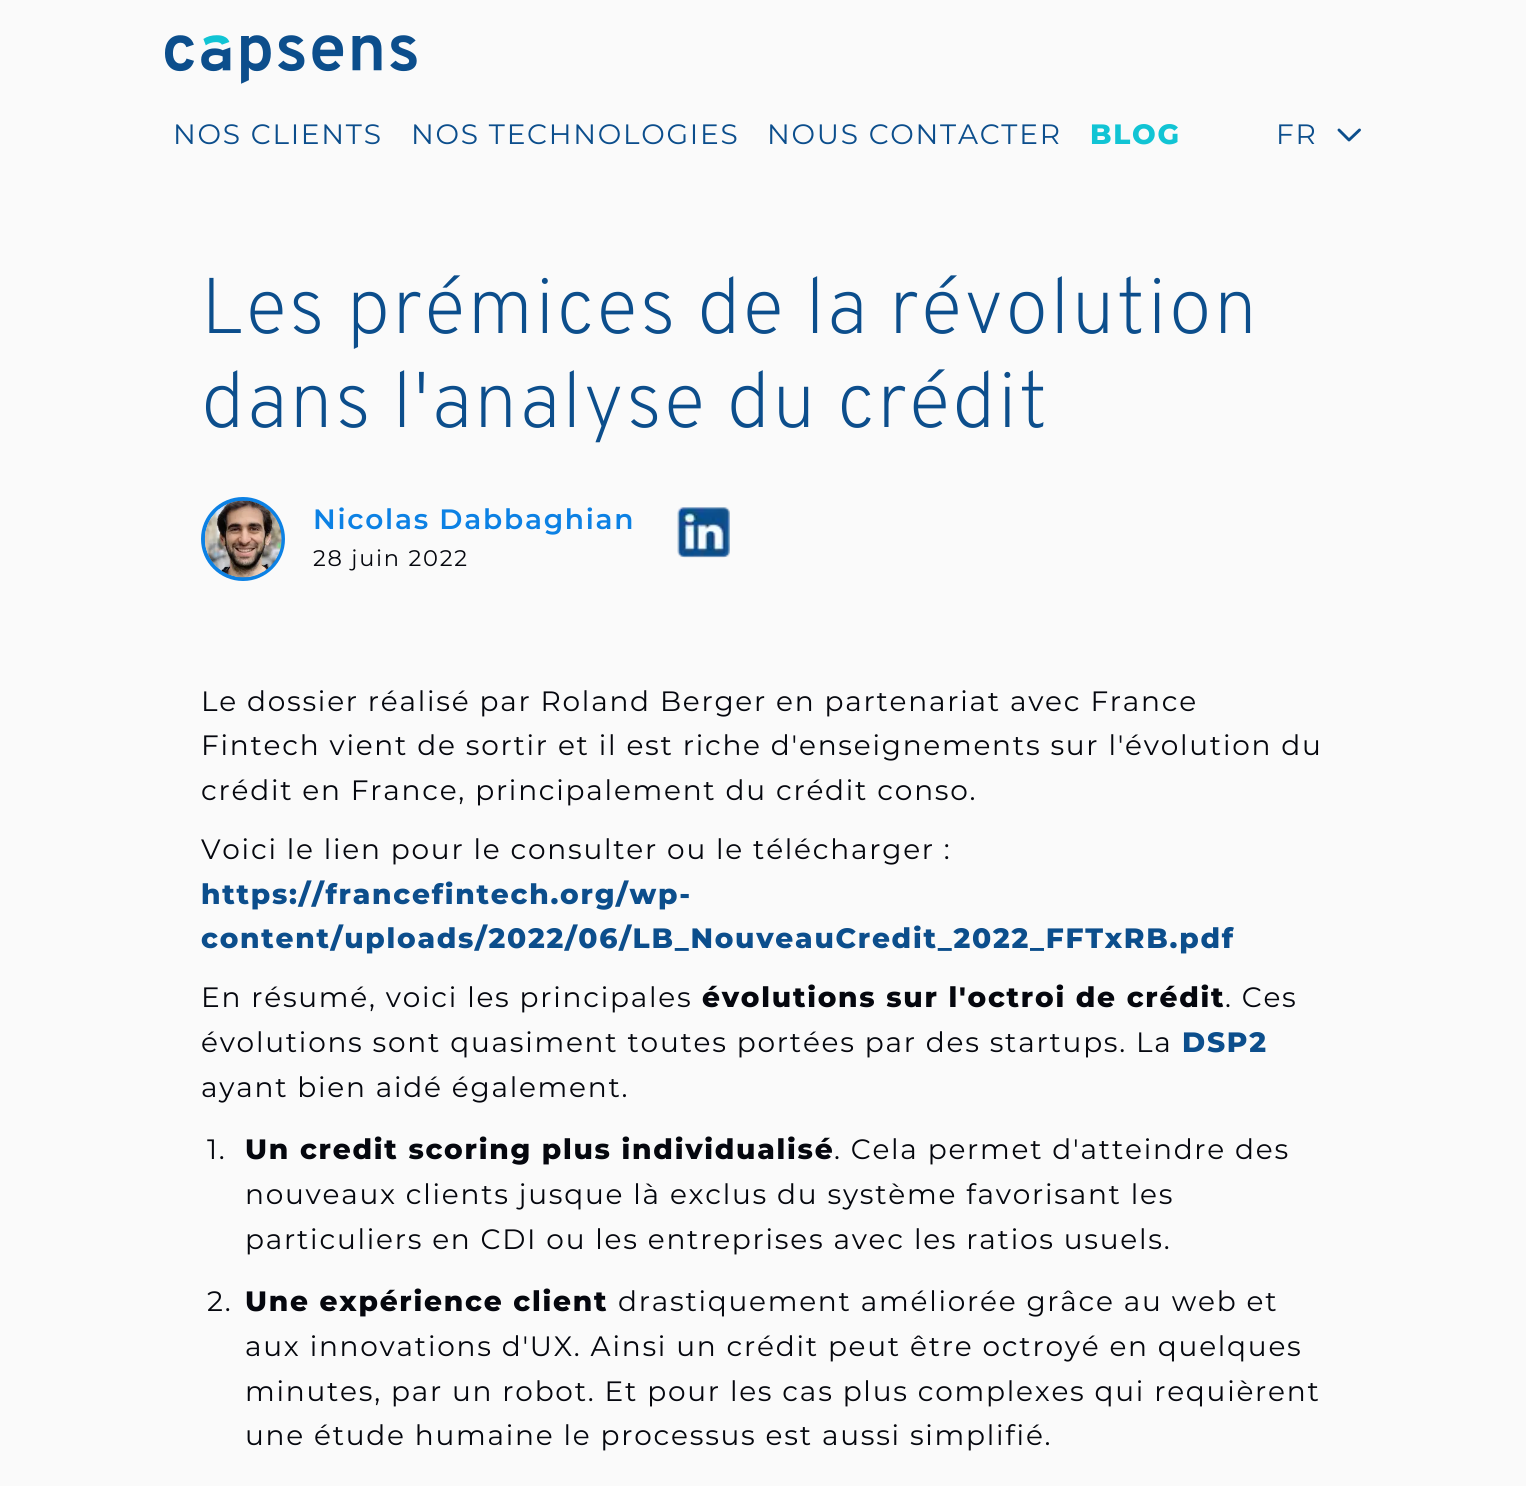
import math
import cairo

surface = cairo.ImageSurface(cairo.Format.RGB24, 1526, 1486)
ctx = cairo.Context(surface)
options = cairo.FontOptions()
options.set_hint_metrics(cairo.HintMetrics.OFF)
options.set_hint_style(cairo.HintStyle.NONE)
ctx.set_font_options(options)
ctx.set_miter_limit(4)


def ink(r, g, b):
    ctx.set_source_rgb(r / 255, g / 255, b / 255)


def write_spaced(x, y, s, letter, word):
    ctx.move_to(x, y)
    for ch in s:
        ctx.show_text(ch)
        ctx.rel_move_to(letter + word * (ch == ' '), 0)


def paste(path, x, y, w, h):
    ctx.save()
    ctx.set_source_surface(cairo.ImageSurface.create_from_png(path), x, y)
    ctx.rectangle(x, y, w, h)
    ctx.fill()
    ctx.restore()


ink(250, 250, 250)
ctx.paint()
paste("pic1.png", 165, 35, 252, 49)
ctx.select_font_face("Montserrat")
ctx.set_font_size(28)
ink(12, 78, 140)
write_spaced(173, 144, "NOS CLIENTS", 1.75, 0)
write_spaced(411, 144, "NOS TECHNOLOGIES", 1.75, 0)
write_spaced(767, 144, "NOUS CONTACTER", 1.75, 0)
ctx.select_font_face("Montserrat ExtraBold")
ink(17, 196, 212)
write_spaced(1090, 144, "BLOG", 1.75, 0)
ctx.select_font_face("Montserrat")
ink(12, 78, 140)
write_spaced(1276, 144, "FR", 1.75, 0)
ctx.new_path()
ctx.move_to(1359.5, 130)
ctx.line_to(1349, 140)
ctx.line_to(1339, 130)
ctx.set_line_width(2.9)
ctx.set_line_cap(cairo.LineCap.ROUND)
ctx.set_line_join(cairo.LineJoin.ROUND)
ctx.stroke()
ctx.select_font_face("Overpass ExtraLight")
ctx.set_font_size(78.75)
write_spaced(201, 333, "Les prémices de la révolution", 1.75, 0)
write_spaced(201, 427, "dans l'analyse du crédit", 1.75, 0)
ctx.new_path()
ctx.arc(243, 539, 40, 0, 2 * math.pi)
ink(12, 129, 228)
ctx.set_line_width(4)
ctx.set_line_cap(cairo.LineCap.BUTT)
ctx.set_line_join(cairo.LineJoin.MITER)
ctx.stroke()
paste("pic2.png", 204, 500, 78, 78)
ctx.select_font_face("Montserrat SemiBold")
ctx.set_font_size(28)
write_spaced(313, 529, "Nicolas Dabbaghian", 1.75, 0)
ctx.select_font_face("Montserrat")
ctx.set_font_size(22.5)
ink(5, 7, 14)
write_spaced(313, 566, "28 juin 2022", 1.75, 0)
paste("pic3.png", 677, 507, 53, 51)
ctx.set_font_size(28)
write_spaced(201, 711, "Le dossier réalisé par Roland Berger en partenariat avec France", 1.75, 0)
write_spaced(201, 755, "Fintech vient de sortir et il est riche d'enseignements sur l'évolution du", 1.75, 0)
write_spaced(201, 800, "crédit en France, principalement du crédit conso.", 1.75, 0)
write_spaced(201, 859, "Voici le lien pour le consulter ou le télécharger :", 1.75, 0)
ctx.select_font_face("Montserrat ExtraBold")
ink(12, 78, 140)
write_spaced(201, 904, "https://francefintech.org/wp-", 1.75, 0)
write_spaced(201, 948, "content/uploads/2022/06/LB_NouveauCredit_2022_FFTxRB.pdf", 1.75, 0)
ctx.select_font_face("Montserrat")
ink(5, 7, 14)
write_spaced(201, 1007, "En résumé, voici les principales", 1.75, 0)
ctx.select_font_face("Montserrat ExtraBold")
write_spaced(702, 1007, "évolutions sur l'octroi de crédit", 1.75, 0)
ctx.select_font_face("Montserrat")
write_spaced(1225, 1007, ". Ces", 1.75, 0)
write_spaced(201, 1052, "évolutions sont quasiment toutes portées par des startups. La", 1.75, 0)
ctx.select_font_face("Montserrat ExtraBold")
ink(12, 78, 140)
write_spaced(1182, 1052, "DSP2", 1.75, 0)
ctx.select_font_face("Montserrat")
ink(5, 7, 14)
write_spaced(201, 1097, "ayant bien aidé également.", 1.75, 0)
write_spaced(207, 1159, "1.", 1.75, 0)
ctx.select_font_face("Montserrat ExtraBold")
write_spaced(245, 1159, "Un credit scoring plus individualisé", 1.75, 0)
ctx.select_font_face("Montserrat")
write_spaced(834, 1159, ". Cela permet d'atteindre des", 1.75, 0)
write_spaced(245, 1204, "nouveaux clients jusque là exclus du système favorisant les", 1.75, 0)
write_spaced(245, 1249, "particuliers en CDI ou les entreprises avec les ratios usuels.", 1.75, 0)
write_spaced(207, 1311, "2.", 1.75, 0)
ctx.select_font_face("Montserrat ExtraBold")
write_spaced(245, 1311, "Une expérience client", 1.75, 0)
ctx.select_font_face("Montserrat")
write_spaced(618, 1311, "drastiquement améliorée grâce au web et", 1.75, 0)
write_spaced(245, 1356, "aux innovations d'UX. Ainsi un crédit peut être octroyé en quelques", 1.75, 0)
write_spaced(245, 1401, "minutes, par un robot. Et pour les cas plus complexes qui requièrent", 1.75, 0)
write_spaced(245, 1445, "une étude humaine le processus est aussi simplifié.", 1.75, 0)
surface.write_to_png("screenshot.png")
